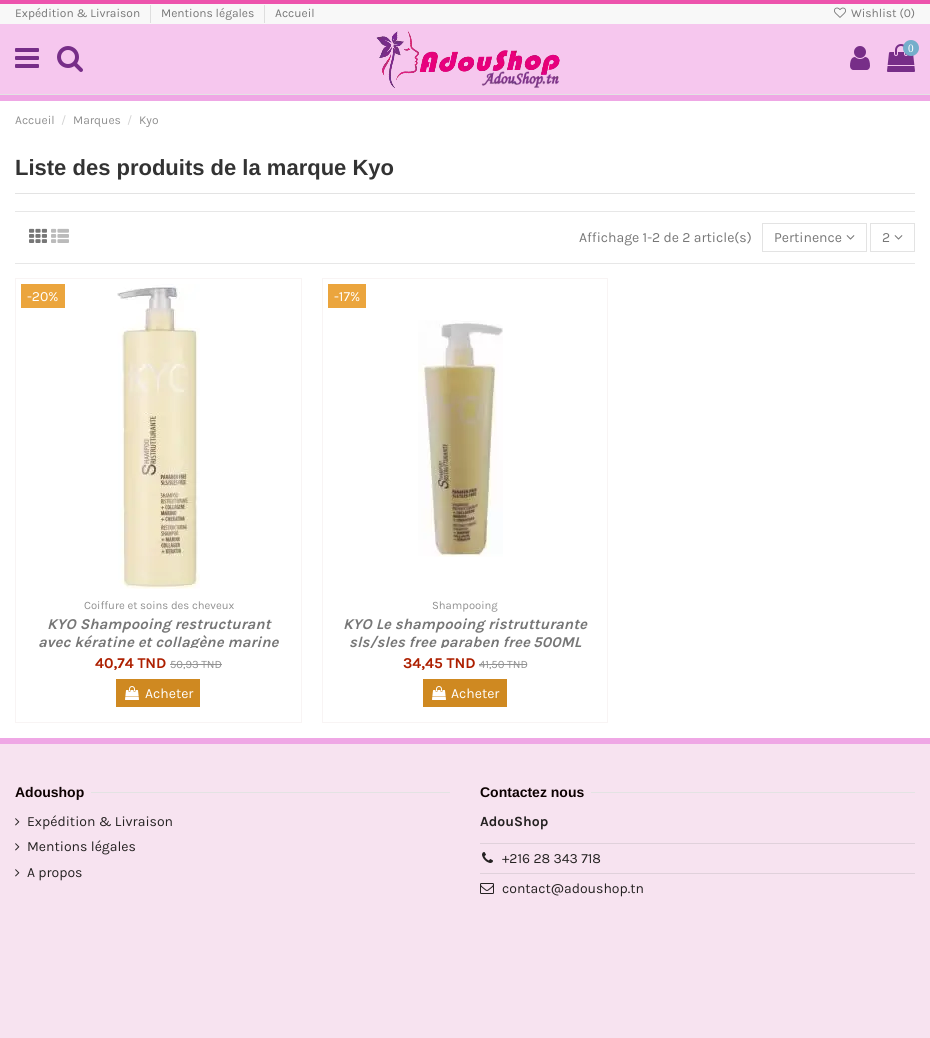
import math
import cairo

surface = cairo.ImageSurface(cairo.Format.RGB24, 930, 1038)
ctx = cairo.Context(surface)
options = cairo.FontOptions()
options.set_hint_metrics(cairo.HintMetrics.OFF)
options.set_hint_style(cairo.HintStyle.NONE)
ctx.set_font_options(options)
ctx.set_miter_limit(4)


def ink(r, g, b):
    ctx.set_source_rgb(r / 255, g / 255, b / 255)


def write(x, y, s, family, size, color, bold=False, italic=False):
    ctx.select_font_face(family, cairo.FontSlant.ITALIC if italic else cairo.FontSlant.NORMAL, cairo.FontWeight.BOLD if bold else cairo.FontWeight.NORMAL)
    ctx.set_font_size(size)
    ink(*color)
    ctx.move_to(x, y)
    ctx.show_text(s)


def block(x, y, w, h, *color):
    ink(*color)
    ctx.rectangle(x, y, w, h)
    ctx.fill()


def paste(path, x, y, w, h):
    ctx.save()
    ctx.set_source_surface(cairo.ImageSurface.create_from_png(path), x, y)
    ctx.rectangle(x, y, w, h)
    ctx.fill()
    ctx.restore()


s1 = dict(family="Karla", size=12, color=(119, 119, 119))
s2 = dict(family="Liberation Serif", size=11.25, color=(255, 255, 255))
s3 = dict(family="Karla", size=12, color=(143, 143, 143))
s4 = dict(family="Karla", size=12, color=(210, 210, 210))
s5 = dict(family="Liberation Sans", size=22, color=(51, 51, 51), bold=True)
s6 = dict(family="Karla", size=14, color=(119, 119, 119))
s7 = dict(family="Karla", size=14, color=(255, 255, 255))
s8 = dict(family="Karla", size=11.25, color=(143, 143, 143))
s9 = dict(family="Karla", size=15, color=(119, 119, 119), bold=True, italic=True)
s10 = dict(family="Karla", size=15, color=(173, 31, 0), bold=True)
s11 = dict(family="Liberation Sans", size=14, color=(13, 1, 1), bold=True)
s12 = dict(family="Karla", size=14, color=(37, 34, 34))
s13 = dict(family="Karla", size=14, color=(37, 34, 34), bold=True)

ink(247, 227, 240)
ctx.paint()
block(0, 24, 930, 70, 246, 199, 238)
block(0, 0, 930, 4, 237, 84, 173)
block(0, 4, 930, 20, 248, 248, 248)
write(15, 17, "Expédition & Livraison", **s1)
block(150, 5, 1, 18, 222, 222, 222)
write(161, 17, "Mentions légales", **s1)
block(264, 5, 1, 18, 222, 222, 222)
write(275, 17, "Accueil", **s1)
paste("pic1.png", 834, 7, 12, 11)
write(851, 17, "Wishlist (0)", **s1)
block(0, 94, 930, 1, 227, 227, 227)
paste("pic2.png", 15, 48, 24, 20)
paste("pic3.png", 57, 46, 26, 26)
paste("pic4.png", 376, 30, 184, 58)
paste("pic5.png", 850, 46, 20, 24)
paste("pic6.png", 887, 44, 28, 28)
ink(116, 174, 203)
ctx.arc(911, 48, 8, 0, 2 * math.pi)
ctx.fill()
write(908, 52, "0", **s2)
block(0, 101, 930, 637, 255, 255, 255)
block(0, 95, 930, 6, 239, 167, 229)
block(0, 738, 930, 6, 239, 167, 229)
write(15, 124, "Accueil", **s3)
write(61, 124, "/", **s4)
write(73, 124, "Marques", **s3)
write(127, 124, "/", **s4)
write(139, 124, "Kyo", **s3)
block(15, 193, 900, 1, 227, 227, 227)
write(15, 175, "Liste des produits de la marque Kyo", **s5)
block(15, 211, 900, 1, 231, 231, 231)
block(15, 263, 900, 1, 231, 231, 231)
paste("pic7.png", 29, 228, 18, 15)
paste("pic8.png", 51, 228, 18, 15)
write(579, 242, "Affichage 1-2 de 2 article(s)", **s6)
ctx.rectangle(762.5, 223.5, 104, 28)
ink(227, 227, 227)
ctx.set_line_width(1)
ctx.stroke()
write(774, 242, "Pertinence", **s6)
paste("pic9.png", 846, 235, 9, 5)
ctx.rectangle(870.5, 223.5, 44, 28)
ink(227, 227, 227)
ctx.stroke()
write(882, 242, "2", **s6)
paste("pic9.png", 894, 235, 9, 5)
ctx.rectangle(15.5, 278.5, 286, 444)
ink(248, 244, 244)
ctx.stroke()
block(21, 284, 44, 24, 235, 165, 61)
write(27, 301, "-20%", **s7)
paste("pic10.png", 117, 284, 83, 305)
write(84, 609, "Coiffure et soins des cheveux", **s8)
write(47, 629, "KYO Shampooing restructurant", **s9)
ctx.save()
ctx.rectangle(31, 615, 255, 33)
ctx.clip()
write(38, 647, "avec kératine et collagène marine", **s9)
ctx.restore()
write(95, 668, "40,74 TND", **s10)
write(170, 668, "50,93 TND", **s8)
block(170, 664, 52, 1, 146, 146, 146)
block(116, 679, 84, 28, 207, 137, 33)
paste("pic11.png", 125, 686, 14, 14)
write(145, 698, "Acheter", **s7)
ctx.rectangle(322.5, 278.5, 285, 444)
ink(248, 244, 244)
ctx.stroke()
block(328, 284, 38, 24, 235, 165, 61)
write(334, 301, "-17%", **s7)
paste("pic12.png", 418, 320, 85, 237)
write(432, 609, "Shampooing", **s8)
write(343, 629, "KYO Le shampooing ristrutturante", **s9)
ctx.save()
ctx.rectangle(338, 615, 254, 33)
ctx.clip()
write(349, 647, "sls/sles free paraben free", **s9)
ctx.restore()
write(533, 647, "500ML", **s9)
write(403, 668, "34,45 TND", **s10)
write(479, 668, "41,50 TND", **s8)
block(479, 664, 48, 1, 146, 146, 146)
block(423, 679, 84, 28, 207, 137, 33)
paste("pic11.png", 432, 686, 14, 14)
write(451, 698, "Acheter", **s7)
write(15, 797, "Adoushop", **s11)
block(91, 792, 359, 1, 227, 227, 227)
paste("pic13.png", 15, 818, 5, 8)
write(27, 826, "Expédition & Livraison", **s12)
paste("pic13.png", 15, 843, 5, 8)
write(27, 851, "Mentions légales", **s12)
paste("pic13.png", 15, 869, 5, 8)
write(27, 877, "A propos", **s12)
write(480, 797, "Contactez nous", **s11)
block(591, 792, 324, 1, 227, 227, 227)
write(480, 826, "AdouShop", **s13)
block(480, 843, 435, 1, 224, 209, 219)
paste("pic14.png", 482, 852, 11, 11)
write(502, 863, "+216 28 343 718", **s12)
block(480, 873, 435, 1, 224, 209, 219)
paste("pic15.png", 480, 883, 14, 11)
write(502, 893, "contact@adoushop.tn", **s12)
surface.write_to_png("screenshot.png")
